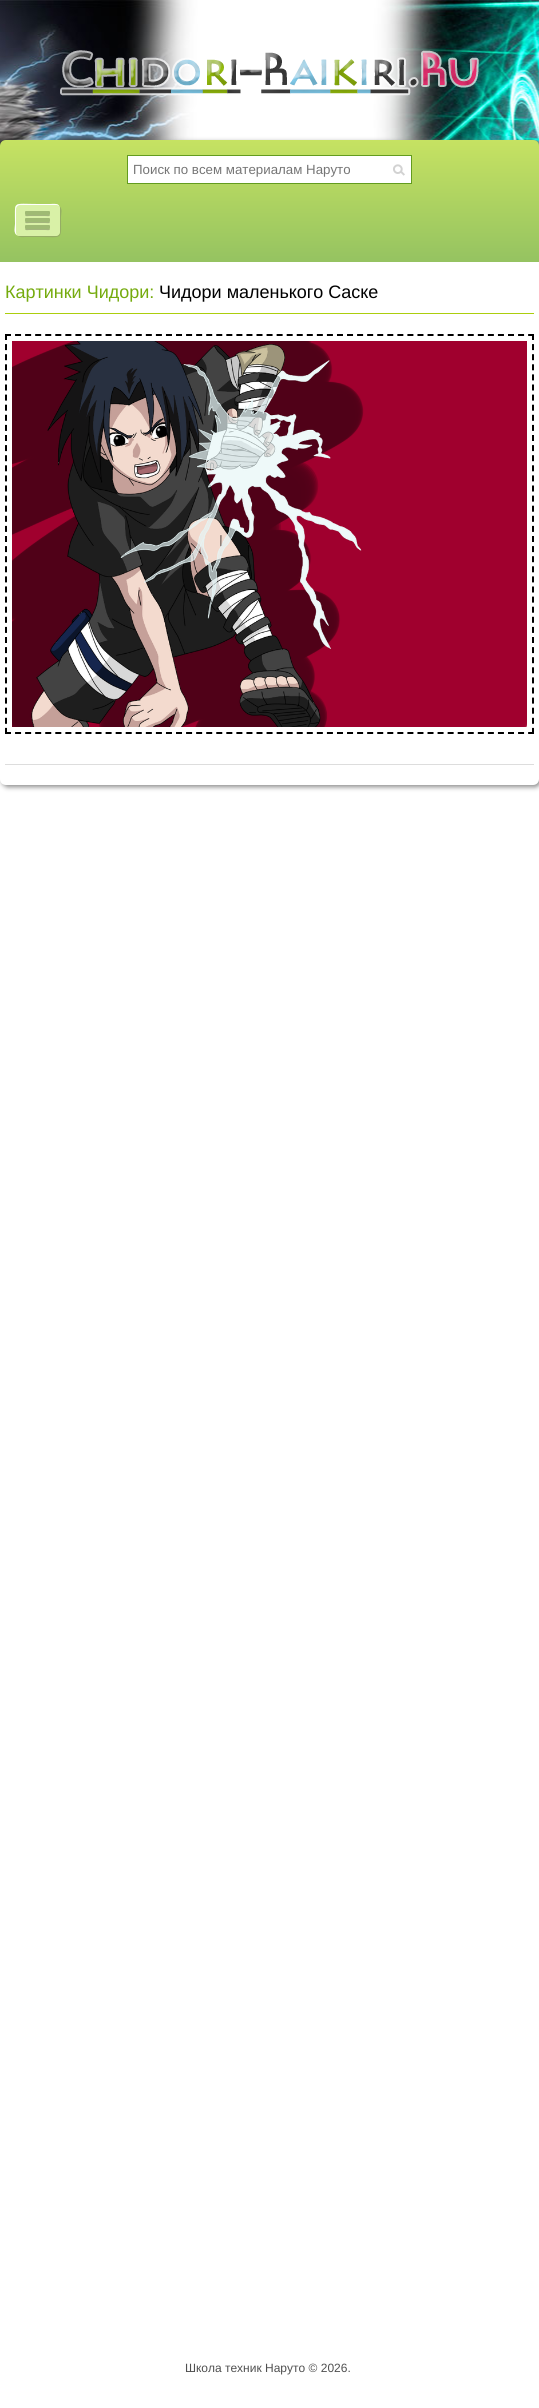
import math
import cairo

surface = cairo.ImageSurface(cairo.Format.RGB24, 539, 2408)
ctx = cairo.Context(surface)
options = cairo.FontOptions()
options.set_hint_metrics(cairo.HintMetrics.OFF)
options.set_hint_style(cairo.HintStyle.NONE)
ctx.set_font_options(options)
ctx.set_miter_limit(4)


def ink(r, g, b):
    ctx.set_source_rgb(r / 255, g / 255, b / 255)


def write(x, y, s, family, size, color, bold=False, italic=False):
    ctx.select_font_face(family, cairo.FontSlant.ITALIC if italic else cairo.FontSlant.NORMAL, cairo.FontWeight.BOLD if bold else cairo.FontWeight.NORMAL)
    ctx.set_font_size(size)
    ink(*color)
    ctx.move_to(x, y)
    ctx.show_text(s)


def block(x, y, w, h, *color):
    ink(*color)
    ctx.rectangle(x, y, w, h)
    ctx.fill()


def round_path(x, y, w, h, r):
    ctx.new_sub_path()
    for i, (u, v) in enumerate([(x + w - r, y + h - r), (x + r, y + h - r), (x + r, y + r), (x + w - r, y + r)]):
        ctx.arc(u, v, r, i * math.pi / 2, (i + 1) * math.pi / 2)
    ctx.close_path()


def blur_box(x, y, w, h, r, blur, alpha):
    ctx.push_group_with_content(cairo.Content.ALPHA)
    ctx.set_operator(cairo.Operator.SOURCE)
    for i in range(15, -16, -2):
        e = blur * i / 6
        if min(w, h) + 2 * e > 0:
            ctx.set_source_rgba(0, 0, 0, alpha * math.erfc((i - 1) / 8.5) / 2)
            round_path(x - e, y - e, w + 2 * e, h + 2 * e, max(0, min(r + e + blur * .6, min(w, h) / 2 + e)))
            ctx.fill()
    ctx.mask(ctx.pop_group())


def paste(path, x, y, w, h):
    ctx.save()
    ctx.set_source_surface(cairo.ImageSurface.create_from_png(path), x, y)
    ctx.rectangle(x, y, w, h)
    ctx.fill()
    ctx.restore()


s1 = dict(family="Liberation Sans", size=13.3, color=(117, 117, 117))
s2 = dict(family="Liberation Sans", size=18, color=(117, 171, 14))
s3 = dict(family="Liberation Sans", size=18, color=(0, 0, 0))
s4 = dict(family="Liberation Sans", size=12, color=(80, 80, 80))

ink(255, 255, 255)
ctx.paint()
paste("pic1.png", 0, 0, 539, 146)
paste("pic2.png", 60, 50, 419, 46)
ink(137, 137, 137)
blur_box(2, 142, 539, 645, 6, 2.5, 1)
gradient = cairo.LinearGradient(270, 140, 270, 262)
gradient.add_color_stop_rgba(0, 0.776, 0.886, 0.384, 1)
gradient.add_color_stop_rgba(1, 0.584, 0.765, 0.38, 1)
ctx.set_source(gradient)
ctx.new_path()
ctx.move_to(6, 140)
ctx.line_to(533, 140)
ctx.curve_to(536.5, 140, 539, 142.5, 539, 146)
ctx.line_to(539, 262)
ctx.line_to(0, 262)
ctx.line_to(0, 146)
ctx.curve_to(0, 142.5, 2.5, 140, 6, 140)
ctx.close_path()
ctx.fill()
block(128, 156, 283, 27, 255, 255, 255)
paste("pic3.png", 393, 164, 12, 12)
ctx.rectangle(127.5, 155.5, 284, 28)
ink(99, 156, 31)
ctx.set_line_width(1)
ctx.stroke()
write(133, 174, "Поиск по всем материалам Наруто", **s1)
ink(149, 173, 101)
ctx.new_path()
ctx.move_to(17, 235)
ctx.curve_to(19, 238, 24, 237, 26, 237)
ctx.line_to(38, 237)
ctx.curve_to(64, 237, 61, 241, 61, 217)
ctx.curve_to(61, 214, 63, 208, 59, 206)
ctx.line_to(60, 208)
ctx.line_to(60, 232)
ctx.curve_to(60, 234, 58, 236, 56, 236)
ctx.line_to(19, 236)
ctx.close_path()
ctx.fill()
ink(217, 241, 167)
round_path(15, 204, 45, 32, 4)
ctx.fill()
ink(255, 255, 255)
ctx.new_path()
ctx.move_to(20, 205)
ctx.line_to(57, 205)
ctx.line_to(59, 206)
ctx.curve_to(58, 203, 52, 204, 50, 204)
ctx.line_to(38, 204)
ctx.curve_to(12, 204, 15, 200, 15, 224)
ctx.curve_to(15, 227, 13, 233, 17, 235)
ctx.line_to(16, 233)
ctx.line_to(16, 209)
ctx.curve_to(16, 207, 18, 205, 20, 205)
ctx.close_path()
ctx.fill()
ink(163, 181, 125)
ctx.new_path()
ctx.move_to(25, 214)
ctx.curve_to(25, 217, 26.5, 216, 30, 216)
ctx.line_to(45, 216)
ctx.curve_to(48.5, 216, 50, 217, 50, 214)
ctx.curve_to(50, 214.5, 49.5, 215, 49, 215)
ctx.line_to(26, 215)
ctx.curve_to(25.5, 215, 25, 214.5, 25, 214)
ctx.close_path()
ctx.fill()
ink(159, 186, 116)
round_path(25, 211, 25, 4, 1)
ctx.fill()
ink(163, 181, 125)
ctx.new_path()
ctx.move_to(25, 221)
ctx.curve_to(25, 224, 26.5, 223, 30, 223)
ctx.line_to(45, 223)
ctx.curve_to(48.5, 223, 50, 224, 50, 221)
ctx.curve_to(50, 221.5, 49.5, 222, 49, 222)
ctx.line_to(26, 222)
ctx.curve_to(25.5, 222, 25, 221.5, 25, 221)
ctx.close_path()
ctx.fill()
ink(159, 186, 116)
round_path(25, 218, 25, 4, 1)
ctx.fill()
ink(163, 181, 125)
ctx.new_path()
ctx.move_to(25, 228)
ctx.curve_to(25, 231, 26.5, 230, 30, 230)
ctx.line_to(45, 230)
ctx.curve_to(48.5, 230, 50, 231, 50, 228)
ctx.curve_to(50, 228.5, 49.5, 229, 49, 229)
ctx.line_to(26, 229)
ctx.curve_to(25.5, 229, 25, 228.5, 25, 228)
ctx.close_path()
ctx.fill()
ink(159, 186, 116)
round_path(25, 225, 25, 4, 1)
ctx.fill()
ink(255, 255, 255)
ctx.new_path()
ctx.move_to(0, 262)
ctx.line_to(539, 262)
ctx.line_to(539, 779)
ctx.curve_to(539, 782.5, 536.5, 785, 533, 785)
ctx.line_to(6, 785)
ctx.curve_to(2.5, 785, 0, 782.5, 0, 779)
ctx.close_path()
ctx.fill()
block(5, 313, 529, 1, 172, 206, 13)
write(5, 298, "Картинки Чидори:", **s2)
write(159, 298, "Чидори маленького Саске", **s3)
block(5, 764, 529, 1, 221, 221, 221)
ctx.new_path()
ctx.move_to(5, 335)
ctx.line_to(534, 335)
ink(0, 0, 0)
ctx.set_line_width(2)
ctx.set_dash([6, 4.06])
ctx.stroke()
ctx.new_path()
ctx.move_to(533, 334)
ctx.line_to(533, 734)
ctx.set_dash([6, 4.1])
ctx.stroke()
ctx.new_path()
ctx.move_to(5, 733)
ctx.line_to(534, 733)
ctx.set_dash([6, 4.06])
ctx.stroke()
ctx.new_path()
ctx.move_to(6, 334)
ctx.line_to(6, 734)
ctx.set_dash([6, 4.1])
ctx.stroke()
paste("pic4.png", 12, 341, 515, 386)
write(185, 2372, "Школа техник Наруто © 2026.", **s4)
surface.write_to_png("screenshot.png")
